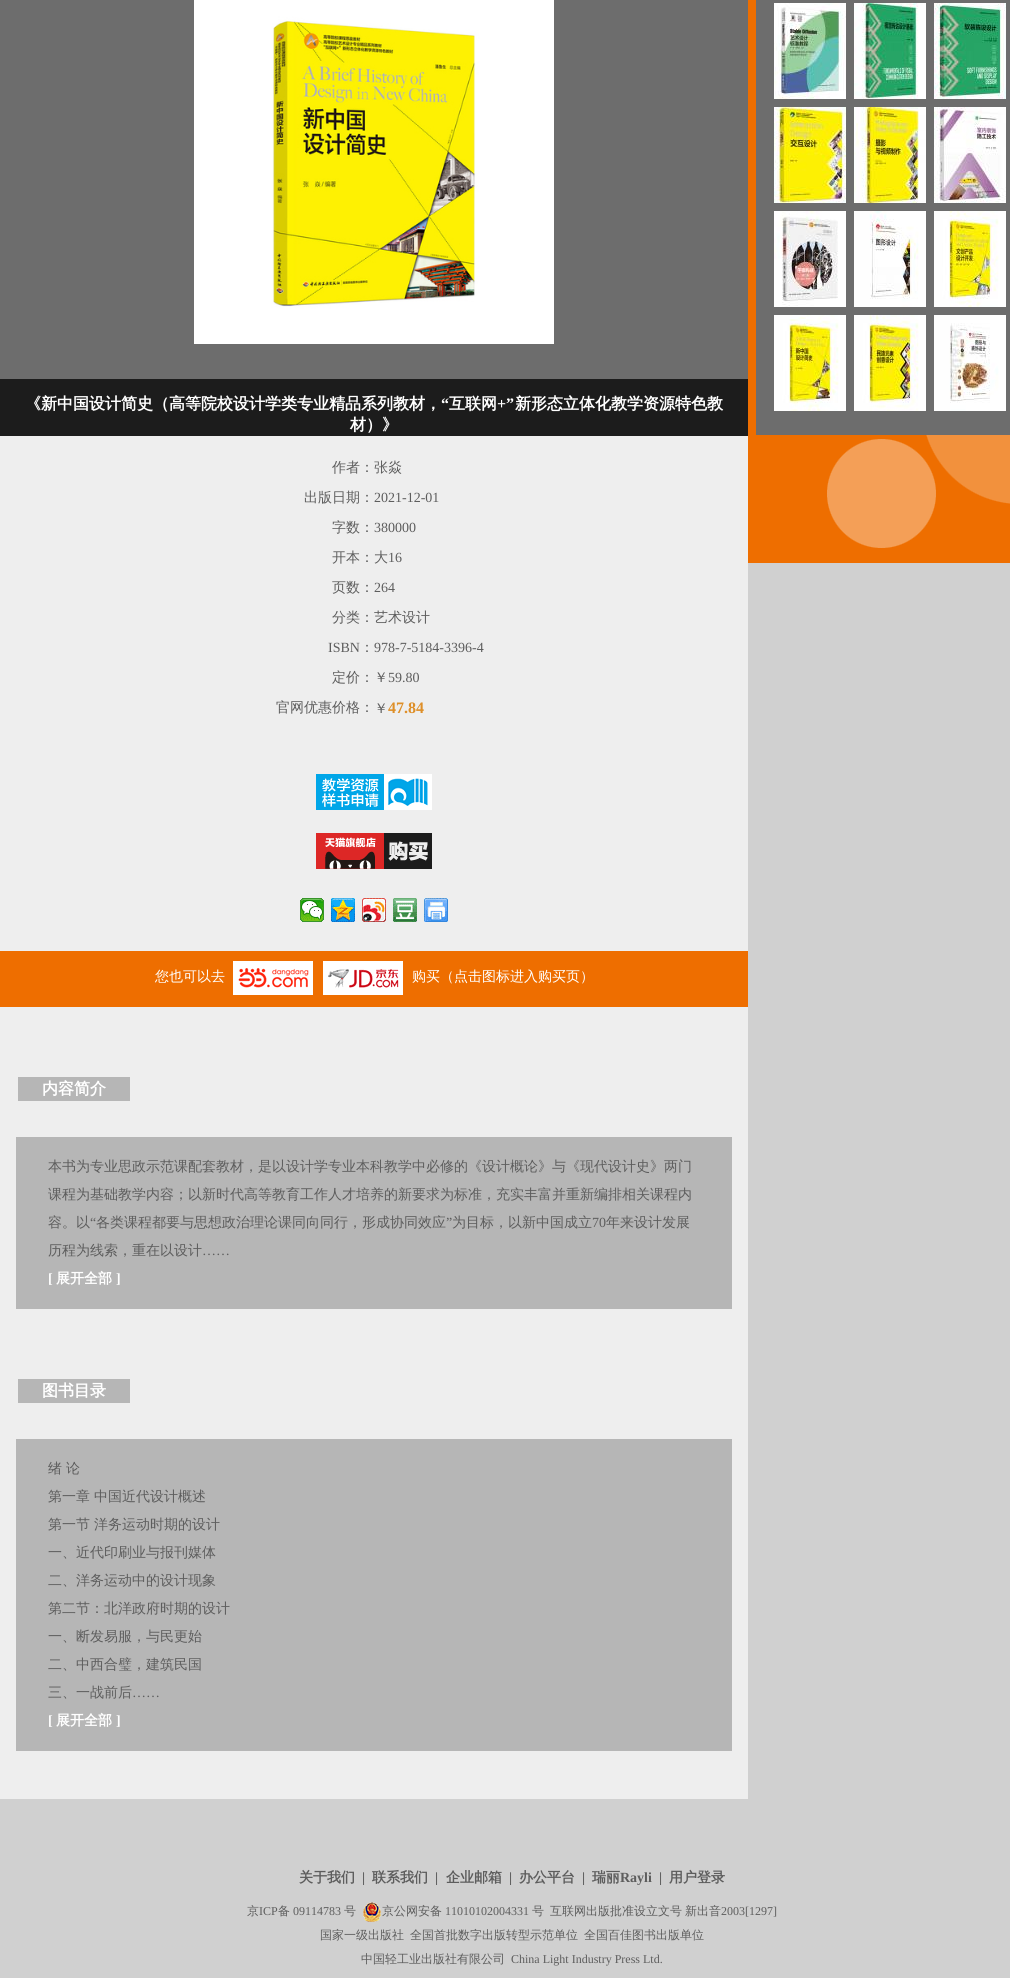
import math
import cairo

surface = cairo.ImageSurface(cairo.Format.RGB24, 1010, 1978)
ctx = cairo.Context(surface)
options = cairo.FontOptions()
options.set_hint_metrics(cairo.HintMetrics.OFF)
options.set_hint_style(cairo.HintStyle.NONE)
ctx.set_font_options(options)
ctx.set_miter_limit(4)


def ink(r, g, b):
    ctx.set_source_rgb(r / 255, g / 255, b / 255)


def write(x, y, s, family, size, color, bold=False, italic=False):
    ctx.select_font_face(family, cairo.FontSlant.ITALIC if italic else cairo.FontSlant.NORMAL, cairo.FontWeight.BOLD if bold else cairo.FontWeight.NORMAL)
    ctx.set_font_size(size)
    ink(*color)
    ctx.move_to(x, y)
    ctx.show_text(s)


def block(x, y, w, h, *color):
    ink(*color)
    ctx.rectangle(x, y, w, h)
    ctx.fill()


def paste(path, x, y, w, h):
    ctx.save()
    ctx.set_source_surface(cairo.ImageSurface.create_from_png(path), x, y)
    ctx.rectangle(x, y, w, h)
    ctx.fill()
    ctx.restore()


s1 = dict(family="WenQuanYi Zen Hei", size=16, color=(255, 255, 255), bold=True)
s2 = dict(family="Liberation Serif", size=16, color=(255, 255, 255), bold=True)
s3 = dict(family="WenQuanYi Zen Hei Medium", size=14, color=(93, 93, 93))
s4 = dict(family="Liberation Serif", size=14, color=(93, 93, 93))
s5 = dict(family="Liberation Serif", size=16, color=(222, 143, 40), bold=True)
s6 = dict(family="WenQuanYi Zen Hei Medium", size=14, color=(255, 255, 255))
s7 = dict(family="Liberation Serif", size=14, color=(255, 255, 255), bold=True)
s8 = dict(family="WenQuanYi Zen Hei", size=14, color=(255, 255, 255), bold=True)
s9 = dict(family="WenQuanYi Zen Hei", size=14, color=(93, 93, 93), bold=True)
s10 = dict(family="Liberation Serif", size=14, color=(93, 93, 93), bold=True)
s11 = dict(family="WenQuanYi Zen Hei Medium", size=12, color=(93, 93, 93))
s12 = dict(family="Liberation Serif", size=12, color=(93, 93, 93))

ink(208, 208, 208)
ctx.paint()
paste("pic1.png", 748, 0, 262, 563)
block(756, 0, 254, 435, 109, 109, 109)
paste("pic2.png", 774, 3, 72, 96)
paste("pic3.png", 854, 3, 72, 96)
paste("pic4.png", 934, 3, 72, 96)
paste("pic5.png", 774, 107, 72, 96)
paste("pic6.png", 854, 107, 72, 96)
paste("pic7.png", 934, 107, 72, 96)
paste("pic8.png", 774, 211, 72, 96)
paste("pic9.png", 854, 211, 72, 96)
paste("pic10.png", 934, 211, 72, 96)
paste("pic11.png", 774, 315, 72, 96)
paste("pic12.png", 854, 315, 72, 96)
paste("pic13.png", 934, 315, 72, 96)
block(0, 436, 748, 1363, 238, 238, 238)
block(0, 0, 748, 379, 109, 109, 109)
paste("pic14.png", 194, 0, 360, 344)
block(0, 379, 748, 57, 28, 28, 28)
write(25, 409, "《新中国设计简史（高等院校设计学类专业精品系列教材，", **s1)
write(441, 409, "“", **s2)
write(449, 409, "互联网", **s1)
write(497, 409, "+”", **s2)
write(515, 409, "新形态立体化教学资源特色教", **s1)
write(350, 430, "材）》", **s1)
write(332, 472, "作者：张焱", **s3)
write(304, 502, "出版日期：", **s3)
write(374, 502, "2021-12-01", **s4)
write(332, 532, "字数：", **s3)
write(374, 532, "380000", **s4)
write(332, 562, "开本：大", **s3)
write(388, 562, "16", **s4)
write(332, 592, "页数：", **s3)
write(374, 592, "264", **s4)
write(332, 622, "分类：艺术设计", **s3)
write(328, 652, "ISBN", **s4)
write(360, 652, "：", **s3)
write(374, 652, "978-7-5184-3396-4", **s4)
write(332, 682, "定价：￥", **s3)
write(388, 682, "59.80", **s4)
write(276, 712, "官网优惠价格：", **s3)
write(374, 713, "￥", **s3)
write(388, 713, "47.84", **s5)
paste("pic15.png", 316, 774, 116, 36)
paste("pic16.png", 316, 833, 116, 36)
paste("pic17.png", 300, 898, 24, 24)
paste("pic18.png", 331, 898, 24, 24)
paste("pic19.png", 362, 898, 24, 24)
paste("pic20.png", 393, 898, 24, 24)
paste("pic21.png", 424, 898, 24, 24)
block(0, 951, 748, 56, 238, 110, 0)
write(155, 981, "您也可以去", **s6)
paste("pic22.png", 233, 961, 80, 34)
paste("pic23.png", 323, 961, 80, 34)
write(412, 981, "购买（点击图标进入购买页）", **s6)
block(18, 1077, 112, 24, 182, 182, 182)
write(42, 1094, "内容简介", **s1)
block(16, 1137, 716, 172, 182, 182, 182)
write(48, 1171, "本书为专业思政示范课配套教材，是以设计学专业本科教学中必修的《设计概论》与《现代设计史》两门", **s3)
write(48, 1199, "课程为基础教学内容；以新时代高等教育工作人才培养的新要求为标准，充实丰富并重新编排相关课程内", **s3)
write(48, 1227, "容。以", **s3)
write(90, 1227, "“", **s4)
write(96, 1227, "各类课程都要与思想政治理论课同向同行，形成协同效应", **s3)
write(446, 1227, "”", **s4)
write(452, 1227, "为目标，以新中国成立", **s3)
write(592, 1227, "70", **s4)
write(606, 1227, "年来设计发展", **s3)
write(48, 1255, "历程为线索，重在以设计", **s3)
write(202, 1255, "……", **s4)
write(48, 1283, "[", **s7)
write(56, 1283, "展开全部", **s8)
write(116, 1283, "]", **s7)
block(18, 1379, 112, 24, 182, 182, 182)
write(42, 1396, "图书目录", **s1)
block(16, 1439, 716, 312, 182, 182, 182)
write(48, 1473, "绪", **s3)
write(66, 1473, "论", **s3)
write(48, 1501, "第一章", **s3)
write(94, 1501, "中国近代设计概述", **s3)
write(48, 1529, "第一节", **s3)
write(94, 1529, "洋务运动时期的设计", **s3)
write(48, 1557, "一、近代印刷业与报刊媒体", **s3)
write(48, 1585, "二、洋务运动中的设计现象", **s3)
write(48, 1613, "第二节：北洋政府时期的设计", **s3)
write(48, 1641, "一、断发易服，与民更始", **s3)
write(48, 1669, "二、中西合璧，建筑民国", **s3)
write(48, 1697, "三、一战前后", **s3)
write(132, 1697, "……", **s4)
write(48, 1725, "[", **s7)
write(56, 1725, "展开全部", **s8)
write(116, 1725, "]", **s7)
write(299, 1882, "关于我们", **s9)
write(362, 1882, "|", **s10)
write(372, 1882, "联系我们", **s9)
write(435, 1882, "|", **s10)
write(446, 1882, "企业邮箱", **s9)
write(509, 1882, "|", **s10)
write(519, 1882, "办公平台", **s9)
write(582, 1882, "|", **s10)
write(592, 1882, "瑞丽", **s9)
write(620, 1882, "Rayli", **s10)
write(659, 1882, "|", **s10)
write(669, 1882, "用户登录", **s9)
write(247, 1915, "京", **s11)
write(259, 1915, "ICP", **s12)
write(278, 1915, "备", **s11)
write(293, 1915, "09114783", **s12)
write(344, 1915, "号", **s11)
paste("pic24.png", 363, 1902, 18, 20)
write(382, 1915, "京公网安备", **s11)
write(445, 1915, "11010102004331", **s12)
write(532, 1915, "号", **s11)
write(550, 1915, "互联网出版批准设立文号", **s11)
write(685, 1915, "新出音", **s11)
write(721, 1915, "2003[1297]", **s12)
write(320, 1939, "国家一级出版社", **s11)
write(410, 1939, "全国首批数字出版转型示范单位", **s11)
write(584, 1939, "全国百佳图书出版单位", **s11)
write(361, 1963, "中国轻工业出版社有限公司", **s11)
write(511, 1963, "China Light Industry Press Ltd.", **s12)
surface.write_to_png("screenshot.png")
